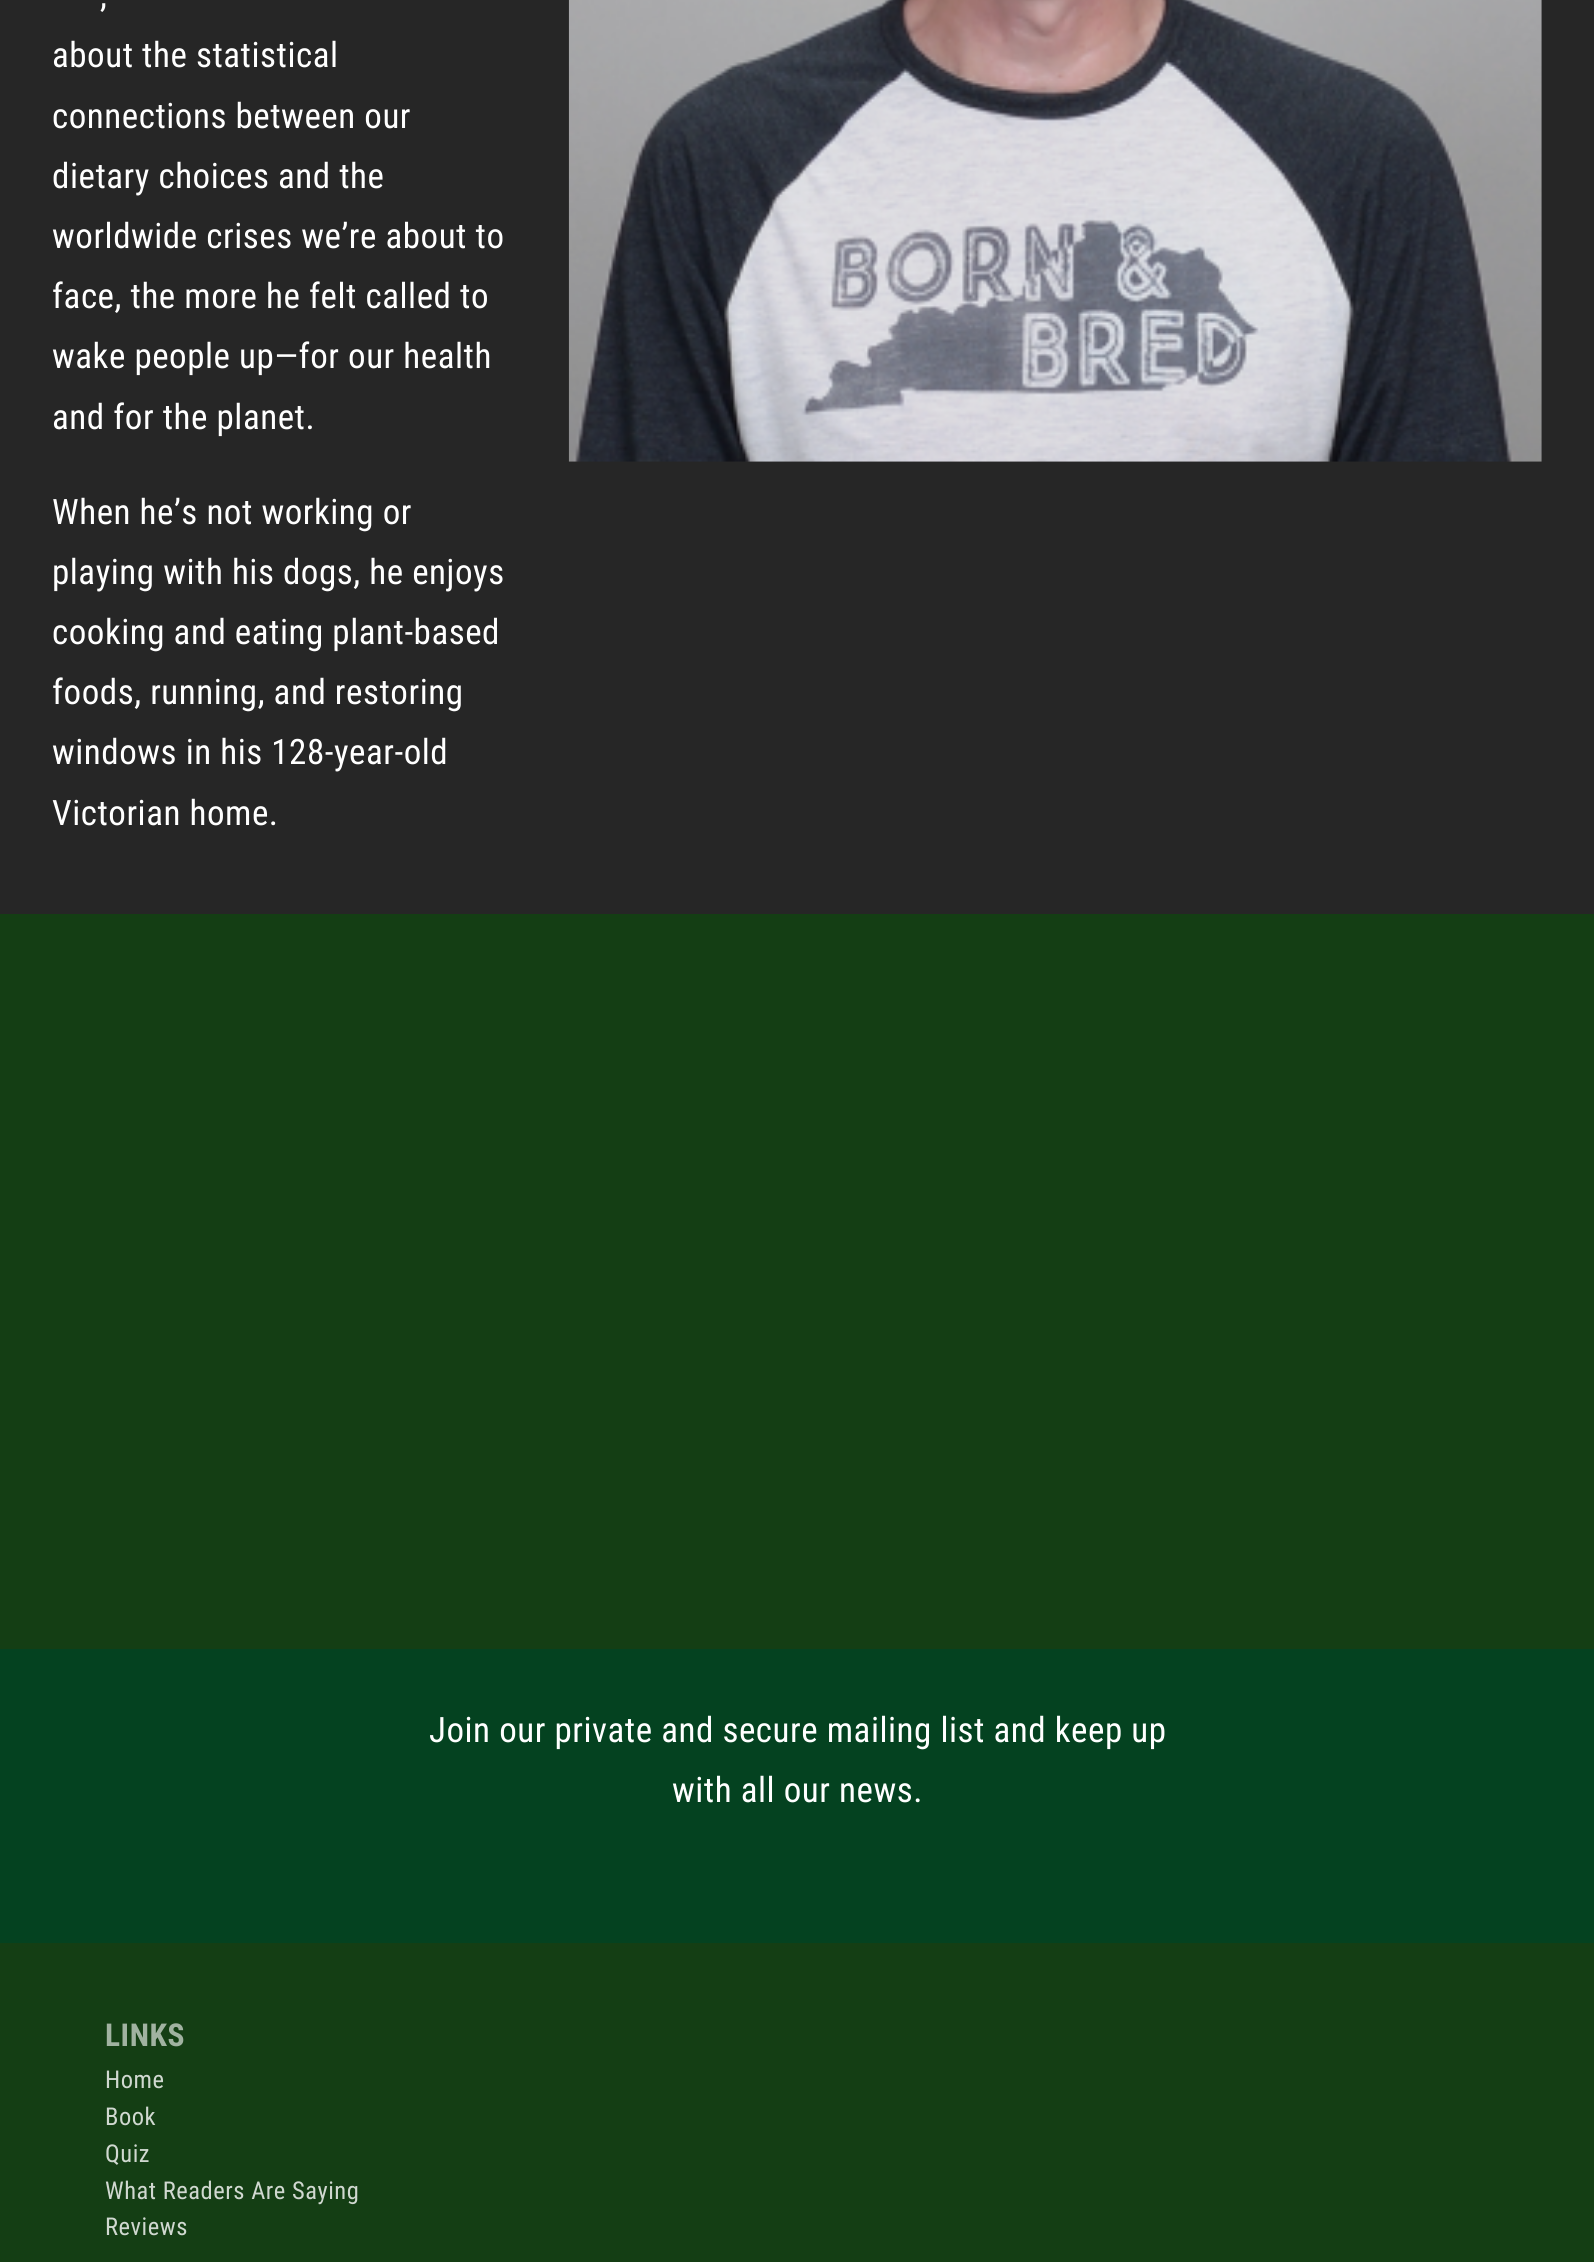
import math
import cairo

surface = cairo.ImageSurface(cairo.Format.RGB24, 1594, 2262)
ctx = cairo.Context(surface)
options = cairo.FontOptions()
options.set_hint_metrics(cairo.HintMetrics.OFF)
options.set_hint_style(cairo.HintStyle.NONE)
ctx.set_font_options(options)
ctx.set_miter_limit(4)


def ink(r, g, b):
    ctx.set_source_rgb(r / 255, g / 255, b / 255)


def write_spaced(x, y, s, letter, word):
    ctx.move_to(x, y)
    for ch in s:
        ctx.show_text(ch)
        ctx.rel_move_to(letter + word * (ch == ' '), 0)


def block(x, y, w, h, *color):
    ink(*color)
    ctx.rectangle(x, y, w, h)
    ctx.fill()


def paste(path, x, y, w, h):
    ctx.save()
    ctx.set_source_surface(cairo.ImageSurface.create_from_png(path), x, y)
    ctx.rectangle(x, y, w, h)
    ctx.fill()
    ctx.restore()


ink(38, 38, 38)
ctx.paint()
ctx.select_font_face("Roboto Condensed")
ctx.set_font_size(35)
ink(255, 255, 255)
write_spaced(100, 7, ",", 0.53, 0)
write_spaced(52, 67, "about the statistical", 0.53, 0)
write_spaced(52, 128, "connections between our", 0.53, 0)
write_spaced(52, 188, "dietary choices and the", 0.53, 0)
write_spaced(52, 248, "worldwide crises we’re about to", 0.53, 0)
write_spaced(52, 308, "face, the more he felt called to", 0.53, 0)
write_spaced(52, 368, "wake people up—for our health", 0.53, 0)
write_spaced(52, 429, "and for the planet.", 0.53, 0)
write_spaced(52, 524, "When he’s not working or", 0.53, 0)
write_spaced(52, 584, "playing with his dogs, he enjoys", 0.53, 0)
write_spaced(52, 644, "cooking and eating plant-based", 0.53, 0)
write_spaced(52, 704, "foods, running, and restoring", 0.53, 0)
write_spaced(52, 764, "windows in his 128-year-old", 0.53, 0)
write_spaced(52, 825, "Victorian home.", 0.53, 0)
paste("pic1.png", 568, 0, 974, 462)
block(0, 914, 1594, 735, 20, 62, 20)
block(0, 1649, 1594, 294, 4, 66, 32)
ink(255, 255, 255)
write_spaced(429, 1742, "Join our private and secure mailing list and keep up", 0.53, 0)
write_spaced(672, 1802, "with all our news.", 0.53, 0)
block(0, 1943, 1594, 319, 20, 62, 20)
ctx.select_font_face("Roboto Condensed", cairo.FontSlant.NORMAL, cairo.FontWeight.BOLD)
ctx.set_font_size(31.5)
ink(161, 178, 161)
write_spaced(105, 2046, "LINKS", 0.53, 0)
ctx.select_font_face("Roboto Condensed")
ctx.set_font_size(24.5)
ink(208, 216, 208)
write_spaced(105, 2088, "Home", 0.53, 0)
write_spaced(105, 2125, "Book", 0.53, 0)
write_spaced(105, 2162, "Quiz", 0.53, 0)
write_spaced(105, 2199, "What Readers Are Saying", 0.53, 0)
write_spaced(105, 2235, "Reviews", 0.53, 0)
surface.write_to_png("screenshot.png")
